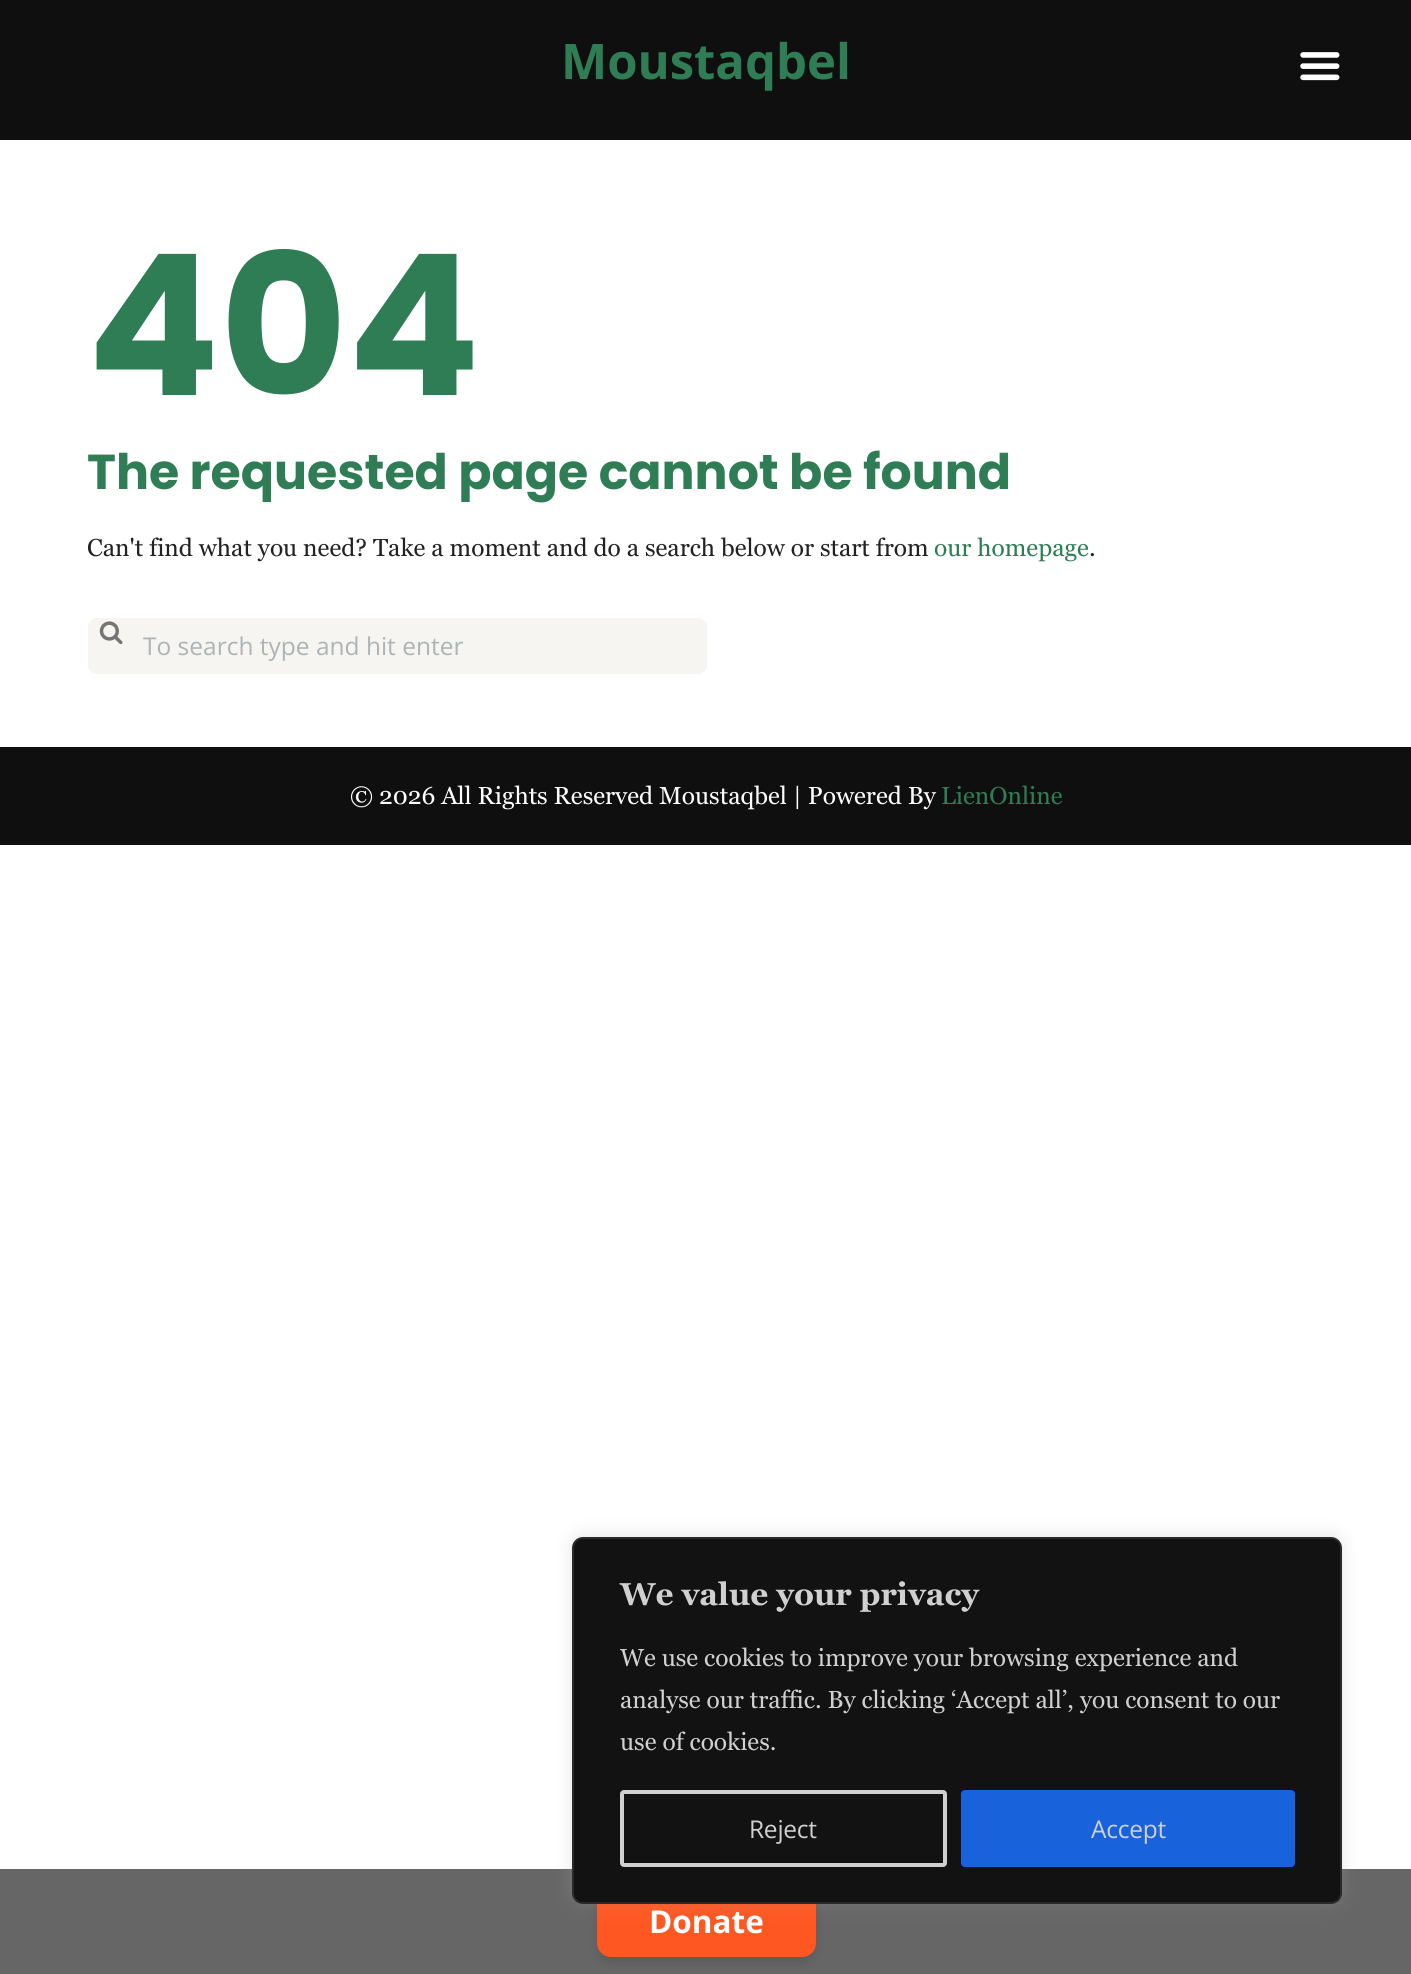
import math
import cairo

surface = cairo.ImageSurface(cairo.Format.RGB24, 1411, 1974)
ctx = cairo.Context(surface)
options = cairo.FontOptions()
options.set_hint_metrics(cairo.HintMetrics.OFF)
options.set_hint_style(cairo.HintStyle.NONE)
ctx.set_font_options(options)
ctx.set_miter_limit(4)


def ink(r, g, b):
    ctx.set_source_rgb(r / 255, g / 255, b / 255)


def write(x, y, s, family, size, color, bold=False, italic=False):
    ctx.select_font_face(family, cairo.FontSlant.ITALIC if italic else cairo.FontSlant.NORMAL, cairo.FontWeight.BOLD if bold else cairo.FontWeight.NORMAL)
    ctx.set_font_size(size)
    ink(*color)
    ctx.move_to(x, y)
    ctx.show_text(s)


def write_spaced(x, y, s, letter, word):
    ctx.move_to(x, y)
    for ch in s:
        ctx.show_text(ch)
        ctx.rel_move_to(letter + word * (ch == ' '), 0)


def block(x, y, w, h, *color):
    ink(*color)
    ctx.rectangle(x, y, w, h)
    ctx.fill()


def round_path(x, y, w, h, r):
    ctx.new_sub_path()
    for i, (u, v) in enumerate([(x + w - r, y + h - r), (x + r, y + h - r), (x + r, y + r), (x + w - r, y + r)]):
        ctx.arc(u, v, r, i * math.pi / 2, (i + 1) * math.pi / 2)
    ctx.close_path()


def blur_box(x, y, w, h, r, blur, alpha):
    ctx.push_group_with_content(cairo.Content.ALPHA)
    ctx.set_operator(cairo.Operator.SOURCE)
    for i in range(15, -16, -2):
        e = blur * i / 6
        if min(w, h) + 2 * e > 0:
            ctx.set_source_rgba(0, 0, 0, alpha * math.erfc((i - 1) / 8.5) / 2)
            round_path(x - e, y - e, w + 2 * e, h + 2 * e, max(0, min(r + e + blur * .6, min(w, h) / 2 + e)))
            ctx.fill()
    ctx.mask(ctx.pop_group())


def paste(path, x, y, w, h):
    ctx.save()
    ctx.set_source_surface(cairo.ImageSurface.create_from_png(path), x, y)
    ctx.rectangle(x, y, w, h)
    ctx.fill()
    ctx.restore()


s1 = dict(family="Open Sans", size=49, color=(47, 125, 85), bold=True)
s2 = dict(family="Poppins", size=196, color=(47, 125, 85), bold=True)
s3 = dict(family="Poppins", size=49, color=(47, 125, 85), bold=True)
s4 = dict(family="Georgia", size=24.5, color=(34, 34, 34))
s5 = dict(family="Georgia", size=24.5, color=(47, 125, 85))
s6 = dict(family="Open Sans", size=24.5, color=(172, 180, 182))
s7 = dict(family="Georgia", size=24.5, color=(255, 255, 255))
s8 = dict(family="Georgia", size=31.5, color=(208, 208, 208), bold=True)
s9 = dict(family="Georgia", size=24.5, color=(208, 208, 208))
s10 = dict(family="Open Sans", size=31.5, color=(255, 255, 255), bold=True)

ink(255, 255, 255)
ctx.paint()
block(0, 0, 1411, 140, 15, 15, 15)
write(561, 79, "Moustaqbel", **s1)
paste("pic1.png", 1300, 52, 40, 29)
write(87, 395, "404", **s2)
write(87, 489, "The requested page cannot be found", **s3)
write(87, 556, "Can't find what you need? Take a moment and do a search below or start from", **s4)
write(934, 556, "our homepage", **s5)
write(1089, 556, ".", **s4)
ink(246, 245, 242)
round_path(88, 618, 619, 56, 9)
ctx.fill()
paste("pic2.png", 99, 621, 24, 24)
write(143, 655, "To search type and hit enter", **s6)
block(0, 747, 1411, 98, 15, 15, 15)
write(350, 804, "© 2026 All Rights Reserved Moustaqbel | Powered By", **s7)
write(941, 804, "LienOnline", **s5)
block(0, 1869, 1411, 105, 102, 102, 102)
ink(0, 0, 0)
blur_box(597, 1894, 219, 70, 14, 5, 0.1)
ink(255, 87, 34)
round_path(597, 1887, 219, 70, 14)
ctx.fill()
ink(172, 171, 171)
blur_box(572, 1535, 770, 367, 11, 9, 0.3)
ink(18, 18, 18)
round_path(573, 1538, 768, 365, 10)
ctx.fill_preserve()
ink(42, 42, 42)
ctx.stroke()
write(620, 1605, "We value your privacy", **s8)
write(620, 1666, "We use cookies to improve your browsing experience and", **s9)
write(620, 1708, "analyse our traffic. By clicking ‘Accept all’, you consent to our", **s9)
write(620, 1750, "use of cookies.", **s9)
round_path(622, 1792, 323, 73, 2)
ctx.set_line_width(4)
ctx.stroke()
ctx.select_font_face("Open Sans")
write_spaced(749, 1838, "Reject", -0.25, 0)
ink(24, 99, 220)
round_path(963, 1792, 330, 73, 2)
ctx.fill_preserve()
ctx.stroke()
ink(208, 208, 208)
write_spaced(1091, 1838, "Accept", -0.25, 0)
write(649, 1933, "Donate", **s10)
surface.write_to_png("screenshot.png")
